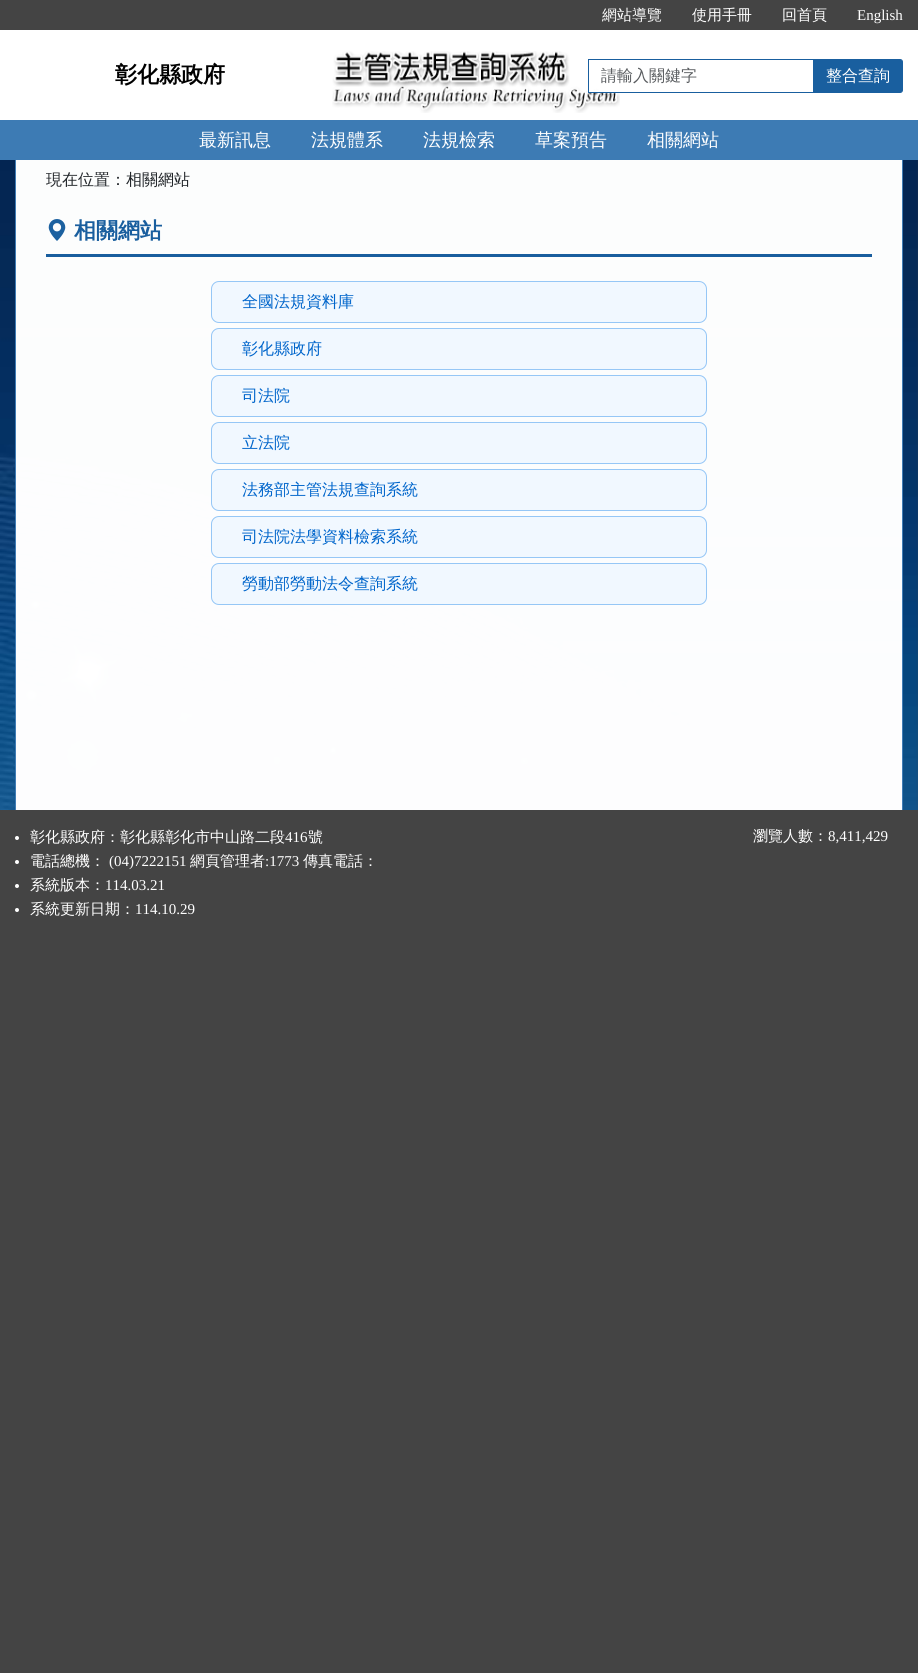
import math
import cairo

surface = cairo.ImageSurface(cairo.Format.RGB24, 918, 1673)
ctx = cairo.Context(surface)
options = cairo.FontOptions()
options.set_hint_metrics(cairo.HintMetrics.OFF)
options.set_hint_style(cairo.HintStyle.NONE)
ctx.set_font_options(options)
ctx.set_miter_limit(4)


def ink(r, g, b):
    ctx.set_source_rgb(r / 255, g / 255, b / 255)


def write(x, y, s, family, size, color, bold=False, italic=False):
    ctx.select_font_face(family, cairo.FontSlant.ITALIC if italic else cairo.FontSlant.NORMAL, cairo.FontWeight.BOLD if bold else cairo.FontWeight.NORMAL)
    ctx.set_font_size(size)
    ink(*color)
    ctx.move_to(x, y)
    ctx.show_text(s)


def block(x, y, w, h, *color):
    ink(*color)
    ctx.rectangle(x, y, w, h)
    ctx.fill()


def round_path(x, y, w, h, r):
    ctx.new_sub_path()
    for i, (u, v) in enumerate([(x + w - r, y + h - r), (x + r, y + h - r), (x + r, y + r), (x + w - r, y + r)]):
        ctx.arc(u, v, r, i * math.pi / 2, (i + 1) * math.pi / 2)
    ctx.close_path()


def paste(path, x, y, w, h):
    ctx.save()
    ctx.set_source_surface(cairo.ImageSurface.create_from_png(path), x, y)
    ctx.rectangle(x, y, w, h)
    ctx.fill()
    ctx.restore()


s1 = dict(family="WenQuanYi Zen Hei Medium", size=15, color=(255, 255, 255))
s2 = dict(family="Liberation Serif", size=15, color=(255, 255, 255))
s3 = dict(family="WenQuanYi Zen Hei", size=22, color=(0, 0, 0), bold=True)
s4 = dict(family="WenQuanYi Zen Hei Medium", size=16, color=(89, 92, 95))
s5 = dict(family="WenQuanYi Zen Hei Medium", size=16, color=(255, 255, 255))
s6 = dict(family="WenQuanYi Zen Hei Medium", size=18, color=(255, 255, 255))
s7 = dict(family="WenQuanYi Zen Hei Medium", size=16, color=(33, 37, 41))
s8 = dict(family="WenQuanYi Zen Hei", size=22, color=(25, 94, 158), bold=True)
s9 = dict(family="WenQuanYi Zen Hei Medium", size=16, color=(0, 101, 203))

ink(68, 68, 68)
ctx.paint()
block(0, 30, 918, 90, 255, 255, 255)
write(602, 20, "網站導覽", **s1)
write(692, 20, "使用手冊", **s1)
write(782, 20, "回首頁", **s1)
write(857, 20, "English", **s2)
write(115, 82, "彰化縣政府", **s3)
paste("pic1.png", 332, 51, 288, 62)
block(590, 90, 28, 2, 255, 255, 255)
ctx.rectangle(588.5, 59.5, 225, 33)
ink(25, 95, 159)
ctx.set_line_width(1)
ctx.stroke()
write(601, 81, "請輸入關鍵字", **s4)
ink(25, 95, 159)
ctx.new_path()
ctx.move_to(813.5, 59.5)
ctx.line_to(900, 59.5)
ctx.curve_to(901.5, 59.5, 902.5, 60.5, 902.5, 62)
ctx.line_to(902.5, 90)
ctx.curve_to(902.5, 91.5, 901.5, 92.5, 900, 92.5)
ctx.line_to(813.5, 92.5)
ctx.close_path()
ctx.fill_preserve()
ctx.stroke()
write(826, 81, "整合查詢", **s5)
block(0, 120, 918, 40, 61, 123, 180)
write(199, 146, "最新訊息", **s6)
write(311, 146, "法規體系", **s6)
write(423, 146, "法規檢索", **s6)
write(535, 146, "草案預告", **s6)
write(647, 146, "相關網站", **s6)
paste("pic2.png", 0, 160, 918, 650)
block(902, 160, 1, 650, 63, 124, 181)
block(15, 160, 1, 650, 63, 124, 181)
write(46, 185, "現在位置：相關網站", **s7)
block(46, 254, 826, 3, 25, 94, 158)
paste("pic3.png", 48, 219, 18, 22)
write(74, 238, "相關網站", **s8)
ink(241, 248, 255)
round_path(211, 281, 496, 42, 8)
ctx.fill()
round_path(211.5, 281.5, 495, 41, 7.5)
ctx.set_source_rgba(0.584, 0.78, 0.965, 0.99)
ctx.stroke()
write(242, 307, "全國法規資料庫", **s9)
ink(241, 248, 255)
round_path(211, 328, 496, 42, 8)
ctx.fill()
round_path(211.5, 328.5, 495, 41, 7.5)
ctx.set_source_rgba(0.584, 0.78, 0.965, 0.99)
ctx.stroke()
write(242, 354, "彰化縣政府", **s9)
ink(241, 248, 255)
round_path(211, 375, 496, 42, 8)
ctx.fill()
round_path(211.5, 375.5, 495, 41, 7.5)
ctx.set_source_rgba(0.584, 0.78, 0.965, 0.99)
ctx.stroke()
write(242, 401, "司法院", **s9)
ink(241, 248, 255)
round_path(211, 422, 496, 42, 8)
ctx.fill()
round_path(211.5, 422.5, 495, 41, 7.5)
ctx.set_source_rgba(0.584, 0.78, 0.965, 0.99)
ctx.stroke()
write(242, 448, "立法院", **s9)
ink(241, 248, 255)
round_path(211, 469, 496, 42, 8)
ctx.fill()
round_path(211.5, 469.5, 495, 41, 7.5)
ctx.set_source_rgba(0.584, 0.78, 0.965, 0.99)
ctx.stroke()
write(242, 495, "法務部主管法規查詢系統", **s9)
ink(241, 248, 255)
round_path(211, 516, 496, 42, 8)
ctx.fill()
round_path(211.5, 516.5, 495, 41, 7.5)
ctx.set_source_rgba(0.584, 0.78, 0.965, 0.99)
ctx.stroke()
write(242, 542, "司法院法學資料檢索系統", **s9)
ink(241, 248, 255)
round_path(211, 563, 496, 42, 8)
ctx.fill()
round_path(211.5, 563.5, 495, 41, 7.5)
ctx.set_source_rgba(0.584, 0.78, 0.965, 0.99)
ctx.stroke()
write(242, 589, "勞動部勞動法令查詢系統", **s9)
ink(255, 255, 255)
ctx.new_path()
ctx.arc(17, 838, 2, 0, 2 * math.pi)
ctx.fill()
write(30, 842, "彰化縣政府：彰化縣彰化市中山路二段", **s1)
write(285, 842, "416", **s2)
write(308, 842, "號", **s1)
ctx.new_path()
ctx.arc(17, 862, 2, 0, 2 * math.pi)
ctx.fill()
write(30, 866, "電話總機：", **s1)
write(109, 866, "(04)7222151", **s2)
write(190, 866, "網頁管理者", **s1)
write(265, 866, ":1773", **s2)
write(303, 866, "傳真電話：", **s1)
ctx.new_path()
ctx.arc(17, 886, 2, 0, 2 * math.pi)
ctx.fill()
write(30, 890, "系統版本：", **s1)
write(105, 890, "114.03.21", **s2)
ctx.new_path()
ctx.arc(17, 910, 2, 0, 2 * math.pi)
ctx.fill()
write(30, 914, "系統更新日期：", **s1)
write(135, 914, "114.10.29", **s2)
write(753, 841, "瀏覽人數：", **s1)
write(828, 841, "8,411,429", **s2)
surface.write_to_png("screenshot.png")
